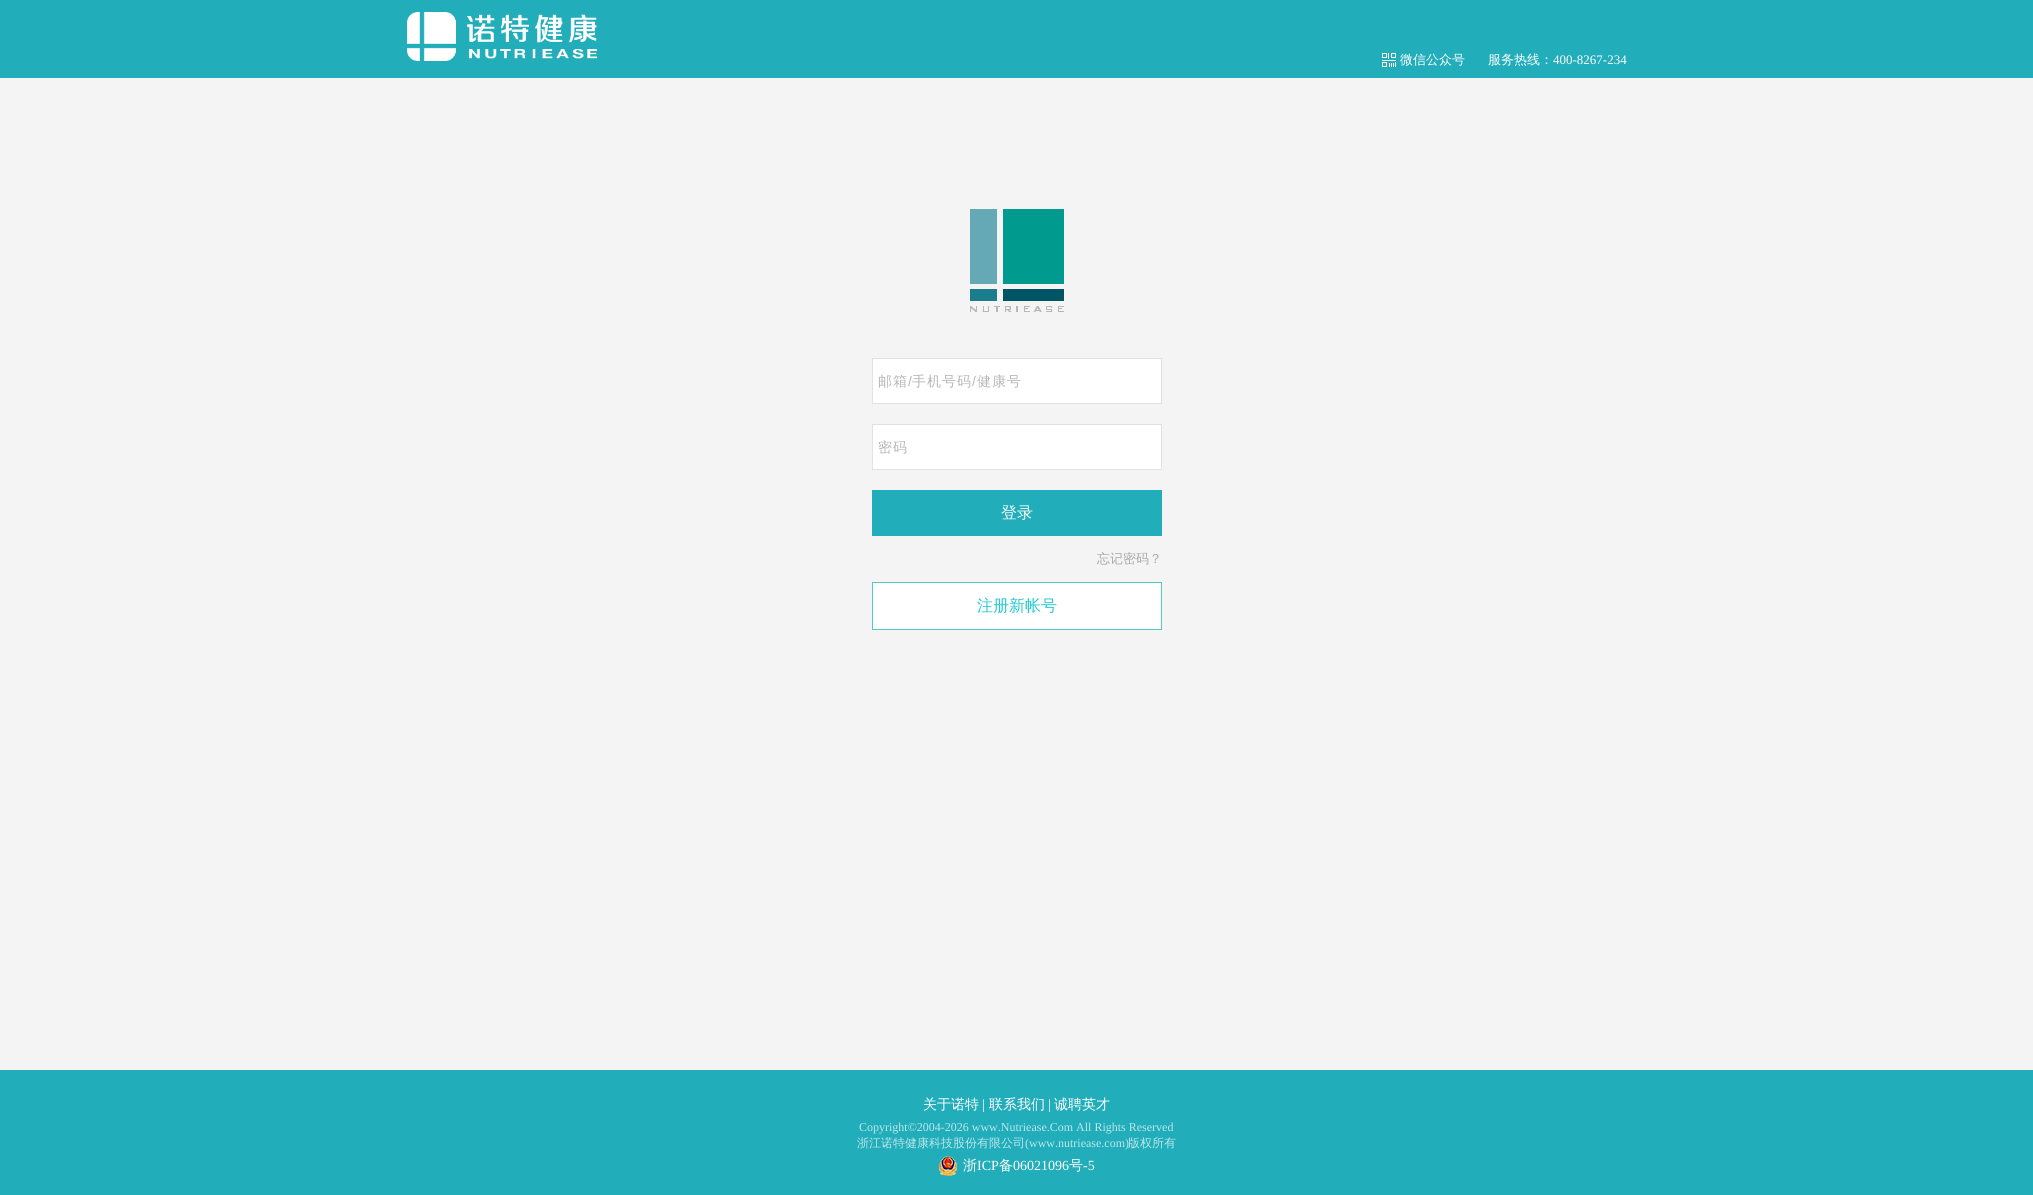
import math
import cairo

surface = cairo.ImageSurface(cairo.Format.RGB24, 2033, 1195)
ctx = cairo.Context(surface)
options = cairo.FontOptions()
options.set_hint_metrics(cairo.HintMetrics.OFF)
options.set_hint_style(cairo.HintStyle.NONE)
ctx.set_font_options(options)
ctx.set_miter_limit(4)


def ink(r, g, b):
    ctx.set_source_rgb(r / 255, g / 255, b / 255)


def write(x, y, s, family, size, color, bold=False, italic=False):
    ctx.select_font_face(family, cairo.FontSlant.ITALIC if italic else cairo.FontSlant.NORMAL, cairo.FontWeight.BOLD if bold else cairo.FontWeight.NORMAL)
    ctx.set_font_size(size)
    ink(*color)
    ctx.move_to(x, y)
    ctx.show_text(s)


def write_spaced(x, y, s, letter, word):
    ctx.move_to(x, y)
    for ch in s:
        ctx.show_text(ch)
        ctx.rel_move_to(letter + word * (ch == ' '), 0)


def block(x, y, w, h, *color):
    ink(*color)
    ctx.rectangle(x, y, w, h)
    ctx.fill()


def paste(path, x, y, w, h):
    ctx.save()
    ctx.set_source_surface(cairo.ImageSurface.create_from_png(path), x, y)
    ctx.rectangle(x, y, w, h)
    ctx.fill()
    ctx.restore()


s1 = dict(family="WenQuanYi Zen Hei Medium", size=13, color=(255, 255, 255))
s2 = dict(family="Liberation Serif", size=13, color=(255, 255, 255))
s3 = dict(family="WenQuanYi Zen Hei Medium", size=16, color=(255, 255, 255))
s4 = dict(family="WenQuanYi Zen Hei Medium", size=13, color=(168, 168, 168))
s5 = dict(family="WenQuanYi Zen Hei Medium", size=16, color=(36, 202, 206))
s6 = dict(family="WenQuanYi Zen Hei Medium", size=14, color=(255, 255, 255))
s7 = dict(family="Liberation Serif", size=14, color=(255, 255, 255))
s8 = dict(family="Liberation Serif", size=12, color=(188, 230, 234))
s9 = dict(family="WenQuanYi Zen Hei Medium", size=12, color=(188, 230, 234))

ink(244, 244, 244)
ctx.paint()
block(0, 0, 2033, 78, 33, 173, 186)
paste("pic1.png", 407, 12, 190, 49)
paste("pic2.png", 1382, 53, 14, 14)
write(1400, 64, "微信公众号", **s1)
write(1488, 64, "服务热线：", **s1)
write(1553, 64, "400-8267-234", **s2)
paste("pic3.png", 970, 209, 94, 103)
ctx.rectangle(872.5, 358.5, 289, 45)
ctx.fill_preserve()
ink(226, 226, 226)
ctx.set_line_width(1)
ctx.stroke()
ctx.select_font_face("WenQuanYi Zen Hei Medium")
ctx.set_font_size(14)
ink(183, 183, 183)
write_spaced(878, 386, "邮箱", 1, 0)
ctx.select_font_face("Liberation Sans")
write_spaced(908, 386, "/", 1, 0)
ctx.select_font_face("WenQuanYi Zen Hei Medium")
write_spaced(912, 386, "手机号码", 1, 0)
ctx.select_font_face("Liberation Sans")
write_spaced(972, 386, "/", 1, 0)
ctx.select_font_face("WenQuanYi Zen Hei Medium")
write_spaced(977, 386, "健康号", 1, 0)
ink(255, 255, 255)
ctx.rectangle(872.5, 424.5, 289, 45)
ctx.fill_preserve()
ink(226, 226, 226)
ctx.stroke()
ink(183, 183, 183)
write_spaced(878, 452, "密码", 1, 0)
block(872, 490, 290, 46, 33, 174, 186)
write(1001, 518, "登录", **s3)
write(1097, 563, "忘记密码？", **s4)
ink(255, 255, 255)
ctx.rectangle(872.5, 582.5, 289, 47)
ctx.fill_preserve()
ink(80, 203, 200)
ctx.stroke()
write(977, 611, "注册新帐号", **s5)
block(0, 1070, 2033, 125, 33, 173, 186)
write(923, 1109, "关于诺特", **s6)
write(982, 1109, "|", **s7)
write(989, 1109, "联系我们", **s6)
write(1048, 1109, "|", **s7)
write(1054, 1109, "诚聘英才", **s6)
write(859, 1131, "Copyright©2004-2026 www.Nutriease.Com All Rights Reserved", **s8)
write(857, 1147, "浙江诺特健康科技股份有限公司", **s9)
write(1025, 1147, "(www.nutriease.com)", **s8)
write(1128, 1147, "版权所有", **s9)
paste("pic4.png", 939, 1156, 18, 20)
write(963, 1170, "浙", **s6)
write(977, 1170, "ICP", **s7)
write(999, 1170, "备", **s6)
write(1013, 1170, "06021096", **s7)
write(1069, 1170, "号", **s6)
write(1083, 1170, "-5", **s7)
surface.write_to_png("screenshot.png")
